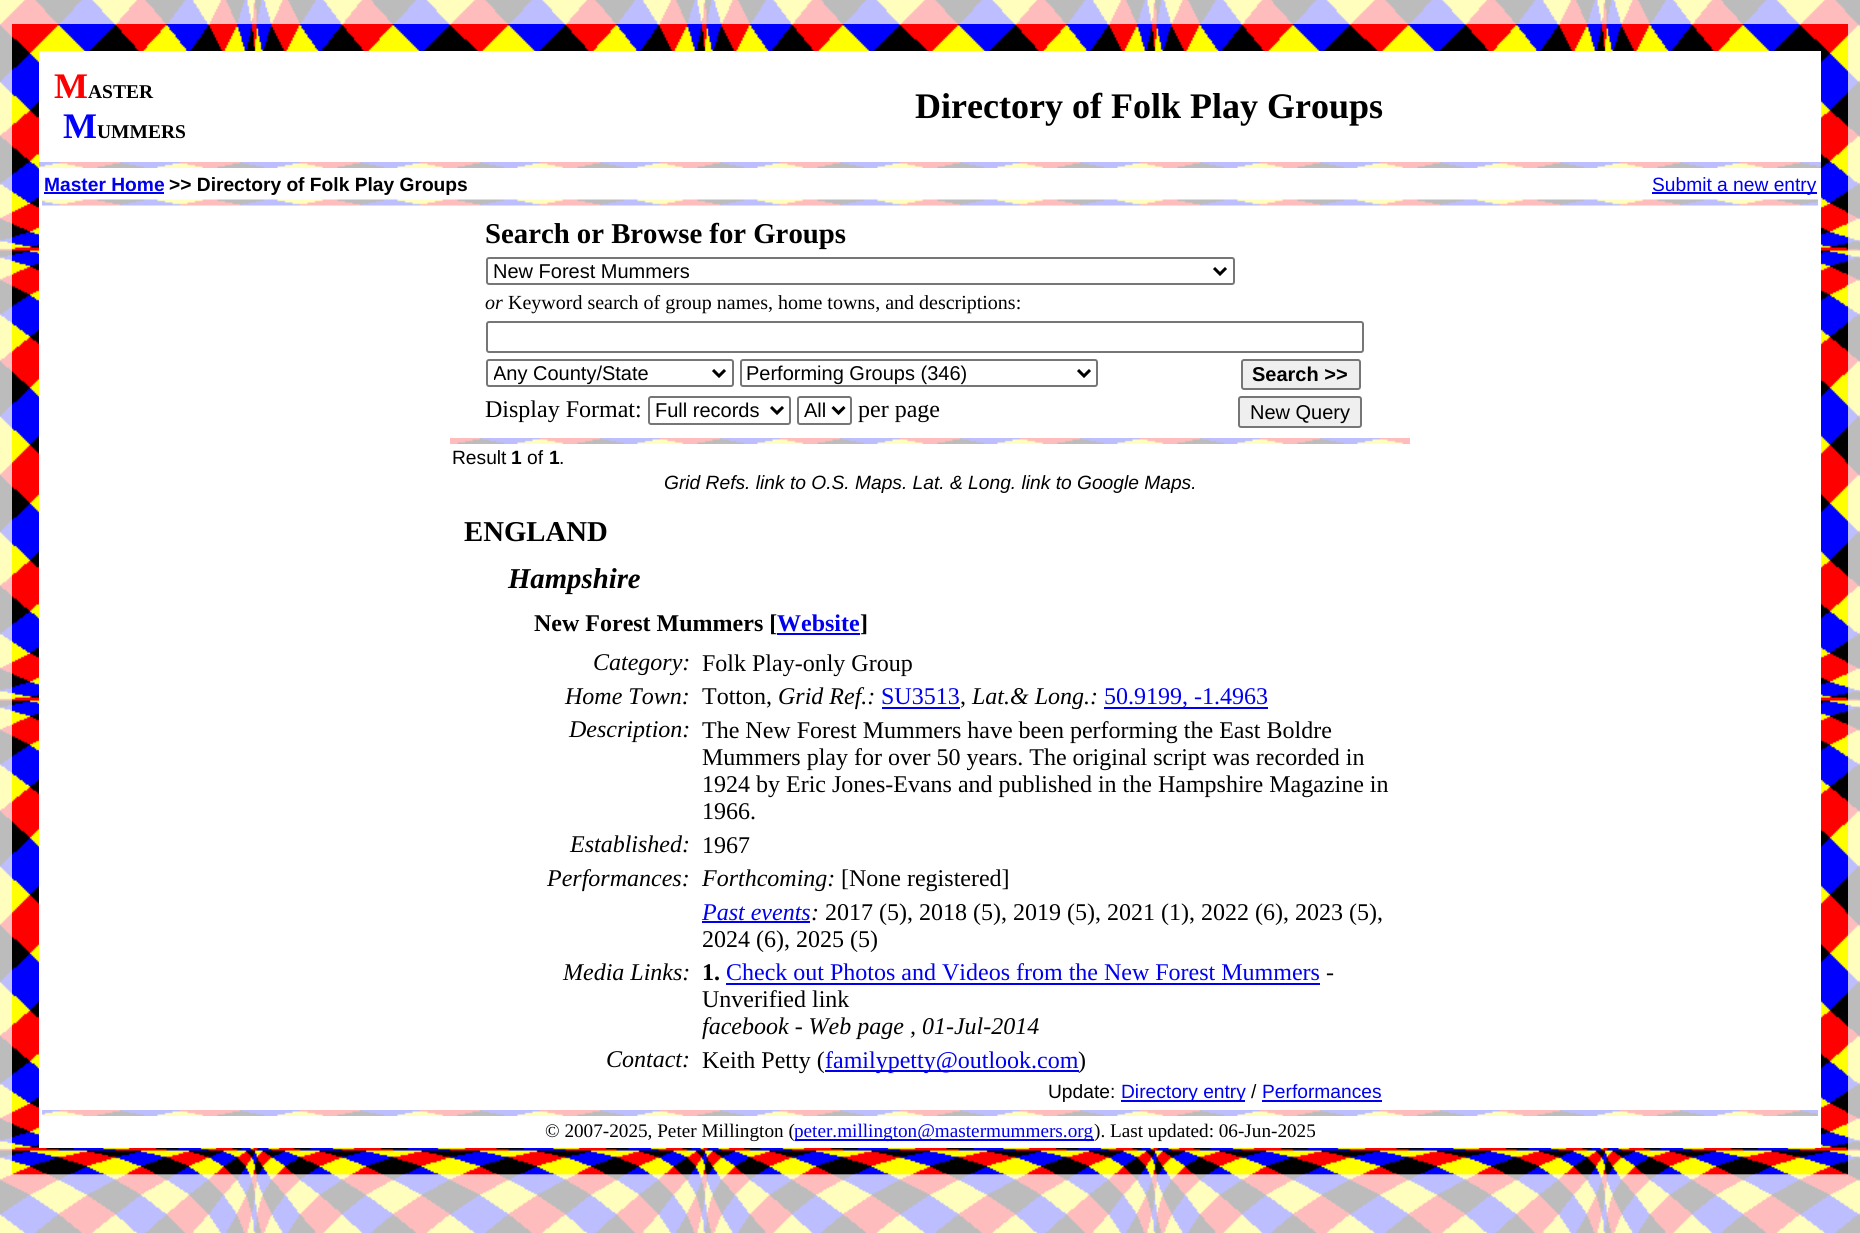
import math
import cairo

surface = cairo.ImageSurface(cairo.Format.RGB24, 1860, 1233)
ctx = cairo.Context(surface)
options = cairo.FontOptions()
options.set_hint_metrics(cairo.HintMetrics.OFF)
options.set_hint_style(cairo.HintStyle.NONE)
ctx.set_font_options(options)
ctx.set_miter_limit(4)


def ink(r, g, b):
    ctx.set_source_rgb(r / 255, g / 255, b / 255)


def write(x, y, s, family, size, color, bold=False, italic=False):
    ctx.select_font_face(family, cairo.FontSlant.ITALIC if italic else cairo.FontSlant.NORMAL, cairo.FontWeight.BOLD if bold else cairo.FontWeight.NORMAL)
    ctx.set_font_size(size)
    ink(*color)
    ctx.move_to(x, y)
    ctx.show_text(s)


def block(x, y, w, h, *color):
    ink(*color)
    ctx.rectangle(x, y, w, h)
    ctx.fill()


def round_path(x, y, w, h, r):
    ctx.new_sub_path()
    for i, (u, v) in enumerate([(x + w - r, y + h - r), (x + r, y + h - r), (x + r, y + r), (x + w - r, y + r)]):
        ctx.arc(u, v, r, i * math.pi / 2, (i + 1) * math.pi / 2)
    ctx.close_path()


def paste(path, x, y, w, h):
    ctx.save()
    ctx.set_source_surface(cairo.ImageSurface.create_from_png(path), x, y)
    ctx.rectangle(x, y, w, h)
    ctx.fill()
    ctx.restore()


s1 = dict(family="Liberation Serif", size=36, color=(255, 0, 0), bold=True)
s2 = dict(family="Liberation Serif", size=19.5, color=(0, 0, 0), bold=True)
s3 = dict(family="Liberation Serif", size=36, color=(0, 0, 255), bold=True)
s4 = dict(family="Liberation Serif", size=36, color=(0, 0, 0), bold=True)
s5 = dict(family="Liberation Sans", size=19.2, color=(0, 0, 238), bold=True)
s6 = dict(family="Liberation Sans", size=19.2, color=(0, 0, 0), bold=True)
s7 = dict(family="Liberation Sans", size=19.2, color=(0, 0, 238))
s8 = dict(family="Liberation Serif", size=28.75, color=(0, 0, 0), bold=True)
s9 = dict(family="Liberation Sans", size=20, color=(0, 0, 0))
s10 = dict(family="Liberation Serif", size=20, color=(0, 0, 0), italic=True)
s11 = dict(family="Liberation Serif", size=20, color=(0, 0, 0))
s12 = dict(family="Liberation Sans", size=20, color=(0, 0, 0), bold=True)
s13 = dict(family="Liberation Serif", size=24, color=(0, 0, 0))
s14 = dict(family="Liberation Sans", size=19.2, color=(0, 0, 0))
s15 = dict(family="Liberation Sans", size=19.2, color=(0, 0, 0), italic=True)
s16 = dict(family="Liberation Serif", size=28.75, color=(0, 0, 0), bold=True, italic=True)
s17 = dict(family="Liberation Serif", size=24, color=(0, 0, 0), bold=True)
s18 = dict(family="Liberation Serif", size=24, color=(0, 0, 238), bold=True)
s19 = dict(family="Liberation Serif", size=24, color=(0, 0, 0), italic=True)
s20 = dict(family="Liberation Serif", size=24, color=(0, 0, 238))
s21 = dict(family="Liberation Serif", size=24, color=(0, 0, 238), italic=True)
s22 = dict(family="Liberation Serif", size=19.2, color=(0, 0, 0))
s23 = dict(family="Liberation Serif", size=19.2, color=(0, 0, 238))

ink(255, 255, 255)
ctx.paint()
paste("pic1.png", 0, 0, 1860, 1233)
block(12, 1174, 1836, 1, 255, 255, 255)
paste("pic2.png", 12, 24, 1836, 1151)
block(39, 51, 1782, 111, 255, 255, 255)
write(54, 98, "M", **s1)
write(88, 98, "ASTER", **s2)
write(63, 138, "M", **s3)
write(97, 138, "UMMERS", **s2)
write(915, 118, "Directory of Folk Play Groups", **s4)
paste("pic3.png", 39, 162, 1782, 6)
block(39, 168, 1782, 980, 255, 255, 255)
write(44, 191, "Master Home", **s5)
block(44, 192, 120, 2, 0, 0, 238)
write(169, 191, ">> Directory of Folk Play Groups", **s6)
block(1652, 192, 165, 2, 0, 0, 238)
write(1652, 191, "Submit a new entry", **s7)
paste("pic4.png", 42, 199, 1776, 7)
write(485, 243, "Search or Browse for Groups", **s8)
round_path(487, 258, 747, 26, 2)
ink(118, 118, 118)
ctx.stroke()
ctx.new_path()
ctx.move_to(1214, 268)
ctx.line_to(1220, 274)
ctx.line_to(1226, 268)
ink(0, 0, 0)
ctx.set_line_width(3)
ctx.stroke()
write(493, 278, "New Forest Mummers", **s9)
write(485, 309, "or", **s10)
write(508, 309, "Keyword search of group names, home towns, and descriptions:", **s11)
round_path(487, 322, 876, 30, 2)
ink(118, 118, 118)
ctx.set_line_width(2)
ctx.stroke()
round_path(487, 360, 246, 26, 2)
ctx.stroke()
ctx.new_path()
ctx.move_to(713, 370)
ctx.line_to(719, 376)
ctx.line_to(725, 370)
ink(0, 0, 0)
ctx.set_line_width(3)
ctx.stroke()
ctx.save()
ctx.rectangle(494, 360, 214, 26)
ctx.clip()
write(493, 380, "Any County/State", **s9)
ctx.restore()
round_path(741, 360, 356, 26, 2)
ink(118, 118, 118)
ctx.set_line_width(2)
ctx.stroke()
ctx.new_path()
ctx.move_to(1078, 370)
ctx.line_to(1084, 376)
ctx.line_to(1090, 370)
ink(0, 0, 0)
ctx.set_line_width(3)
ctx.stroke()
write(746, 380, "Performing Groups (346)", **s9)
ink(239, 239, 239)
round_path(1242, 360, 118, 29, 2)
ctx.fill_preserve()
ink(118, 118, 118)
ctx.set_line_width(2)
ctx.stroke()
write(1252, 381, "Search >>", **s12)
write(485, 417, "Display Format:", **s13)
round_path(649, 397, 141, 27, 2)
ink(118, 118, 118)
ctx.stroke()
ctx.new_path()
ctx.move_to(771, 407)
ctx.line_to(777, 413)
ctx.line_to(783, 407)
ink(0, 0, 0)
ctx.set_line_width(3)
ctx.stroke()
write(655, 417, "Full records", **s9)
round_path(798, 397, 53, 27, 2)
ink(118, 118, 118)
ctx.set_line_width(2)
ctx.stroke()
ctx.new_path()
ctx.move_to(832.5, 407)
ctx.line_to(838.5, 413)
ctx.line_to(844.5, 407)
ink(0, 0, 0)
ctx.set_line_width(3)
ctx.stroke()
write(804, 417, "All", **s9)
write(858, 417, "per page", **s13)
ink(239, 239, 239)
round_path(1239, 397, 122, 30, 2)
ctx.fill_preserve()
ink(118, 118, 118)
ctx.set_line_width(2)
ctx.stroke()
write(1250, 419, "New Query", **s9)
paste("pic5.png", 450, 438, 960, 6)
write(452, 464, "Result", **s14)
write(511, 464, "1", **s6)
write(527, 464, "of", **s14)
write(549, 464, "1", **s6)
write(559, 464, ".", **s14)
write(664, 489, "Grid Refs. link to O.S. Maps. Lat. & Long. link to Google Maps.", **s15)
write(464, 541, "ENGLAND", **s8)
write(508, 588, "Hampshire", **s16)
write(534, 631, "New Forest Mummers [", **s17)
write(777, 631, "Website", **s18)
block(777, 633, 83, 2, 0, 0, 238)
write(860, 631, "]", **s17)
write(593, 670, "Category:", **s19)
write(702, 671, "Folk Play-only Group", **s13)
write(565, 704, "Home Town:", **s19)
write(702, 704, "Totton,", **s13)
write(778, 704, "Grid Ref.:", **s19)
write(881, 704, "SU3513", **s20)
block(882, 707, 78, 2, 0, 0, 238)
write(960, 704, ",", **s13)
write(972, 704, "Lat.& Long.:", **s19)
block(1104, 707, 164, 2, 0, 0, 238)
write(1104, 704, "50.9199, -1.4963", **s20)
write(569, 737, "Description:", **s19)
write(702, 738, "The New Forest Mummers have been performing the East Boldre", **s13)
write(702, 765, "Mummers play for over 50 years. The original script was recorded in", **s13)
write(702, 792, "1924 by Eric Jones-Evans and published in the Hampshire Magazine in", **s13)
write(702, 819, "1966.", **s13)
write(570, 852, "Established:", **s19)
write(702, 853, "1967", **s13)
write(547, 886, "Performances:", **s19)
write(702, 886, "Forthcoming:", **s19)
write(841, 886, "[None registered]", **s13)
write(702, 920, "Past events", **s21)
write(811, 920, ":", **s19)
block(702, 921, 108, 2, 0, 0, 238)
write(825, 920, "2017 (5), 2018 (5), 2019 (5), 2021 (1), 2022 (6), 2023 (5),", **s13)
write(702, 947, "2024 (6), 2025 (5)", **s13)
write(563, 980, "Media Links:", **s19)
write(702, 980, "1.", **s17)
write(726, 980, "Check out Photos and Videos from the New Forest Mummers", **s20)
block(726, 983, 594, 2, 0, 0, 238)
write(1326, 980, "-", **s13)
write(702, 1007, "Unverified link", **s13)
write(702, 1034, "facebook - Web page , 01-Jul-2014", **s19)
write(606, 1067, "Contact:", **s19)
write(702, 1068, "Keith Petty (", **s13)
block(825, 1070, 254, 2, 0, 0, 238)
write(825, 1068, "familypetty@outlook.com", **s20)
write(1078, 1068, ")", **s13)
write(1048, 1098, "Update:", **s14)
block(1121, 1100, 124, 2, 0, 0, 238)
write(1121, 1098, "Directory entry", **s7)
write(1251, 1098, "/", **s14)
write(1262, 1098, "Performances", **s7)
block(1262, 1100, 120, 2, 0, 0, 238)
paste("pic6.png", 42, 1110, 1776, 6)
write(545, 1137, "© 2007-2025, Peter Millington (", **s22)
block(795, 1139, 299, 2, 0, 0, 238)
write(794, 1137, "peter.millington@mastermummers.org", **s23)
write(1094, 1137, "). Last updated: 06-Jun-2025", **s22)
surface.write_to_png("screenshot.png")
